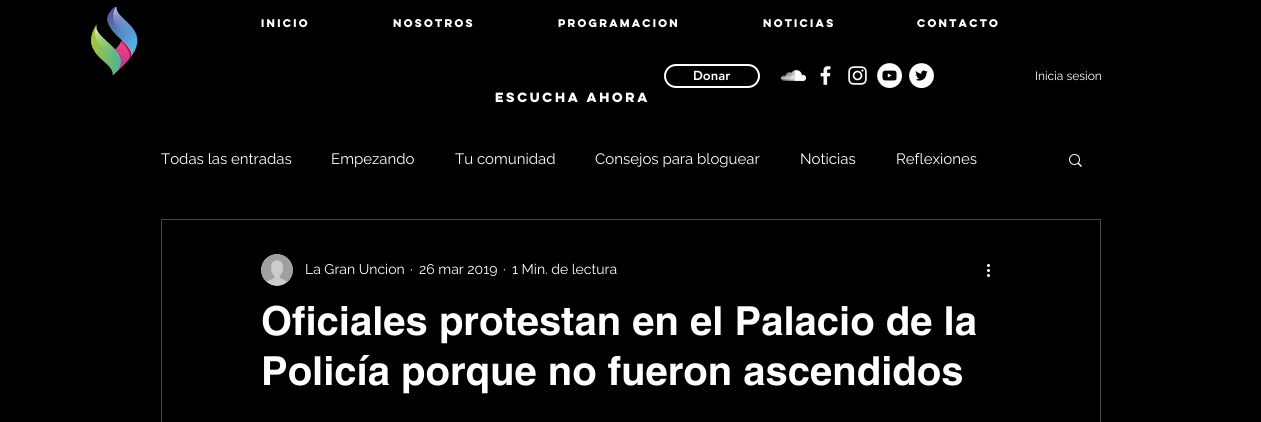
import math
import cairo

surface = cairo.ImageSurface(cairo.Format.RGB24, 1261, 422)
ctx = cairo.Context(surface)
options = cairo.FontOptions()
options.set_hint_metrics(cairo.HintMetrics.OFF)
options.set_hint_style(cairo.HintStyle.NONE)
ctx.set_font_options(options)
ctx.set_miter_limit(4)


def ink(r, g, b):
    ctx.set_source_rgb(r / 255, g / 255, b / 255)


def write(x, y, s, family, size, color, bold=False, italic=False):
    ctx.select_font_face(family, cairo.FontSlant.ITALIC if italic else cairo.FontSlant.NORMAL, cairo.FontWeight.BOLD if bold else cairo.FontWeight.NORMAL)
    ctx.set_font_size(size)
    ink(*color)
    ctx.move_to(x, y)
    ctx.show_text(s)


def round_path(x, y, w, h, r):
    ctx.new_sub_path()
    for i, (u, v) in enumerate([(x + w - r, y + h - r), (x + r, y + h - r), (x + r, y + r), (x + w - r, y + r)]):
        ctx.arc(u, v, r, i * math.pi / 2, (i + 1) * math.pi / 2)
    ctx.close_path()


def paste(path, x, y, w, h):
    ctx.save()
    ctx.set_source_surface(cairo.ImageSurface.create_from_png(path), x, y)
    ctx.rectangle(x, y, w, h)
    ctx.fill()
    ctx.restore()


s1 = dict(family="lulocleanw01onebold", size=10, color=(255, 255, 255), bold=True)
s2 = dict(family="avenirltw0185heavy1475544 Black", size=13, color=(255, 255, 255))
s3 = dict(family="Raleway", size=12, color=(255, 255, 255))
s4 = dict(family="lulocleanw01onebold", size=12, color=(255, 255, 255), bold=True)
s5 = dict(family="Raleway", size=15, color=(255, 255, 255))
s6 = dict(family="Raleway", size=14, color=(255, 255, 255))
s7 = dict(family="helvetica", size=40, color=(255, 255, 255), bold=True)

ink(0, 0, 0)
ctx.paint()
paste("pic1.png", 90, 7, 48, 68)
write(261, 27, "INICIO", **s1)
write(393, 27, "NOSOTROS", **s1)
write(558, 27, "PROGRAMACION", **s1)
write(763, 27, "NOTICIAS", **s1)
write(917, 27, "CONTACTO", **s1)
round_path(665, 65, 94, 22, 11)
ctx.stroke()
write(693, 80, "Donar", **s2)
paste("pic2.png", 781, 69, 25, 13)
paste("pic3.png", 820, 66, 11, 19)
paste("pic4.png", 848, 66, 19, 19)
paste("pic5.png", 877, 63, 25, 25)
paste("pic6.png", 909, 63, 25, 25)
write(1035, 80, "Inicia sesion", **s3)
write(495, 102, "Escucha ahora", **s4)
write(161, 164, "Todas las entradas", **s5)
write(331, 164, "Empezando", **s5)
write(455, 164, "Tu comunidad", **s5)
write(595, 164, "Consejos para bloguear", **s5)
write(800, 164, "Noticias", **s5)
write(896, 164, "Reflexiones", **s5)
paste("pic7.png", 1069, 154, 13, 13)
ctx.rectangle(161.5, 219.5, 939, 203)
ink(72, 71, 71)
ctx.set_line_width(1)
ctx.stroke()
paste("pic8.png", 261, 254, 32, 32)
write(305, 274, "La Gran Uncion", **s6)
write(410, 274, "·", **s6)
write(419, 274, "26 mar 2019", **s6)
write(503, 274, "·", **s6)
write(512, 274, "1 Min. de lectura", **s6)
paste("pic9.png", 987, 264, 3, 13)
write(261, 335, "Oficiales protestan en el Palacio de la", **s7)
write(261, 385, "Policía porque no fueron ascendidos", **s7)
surface.write_to_png("screenshot.png")
